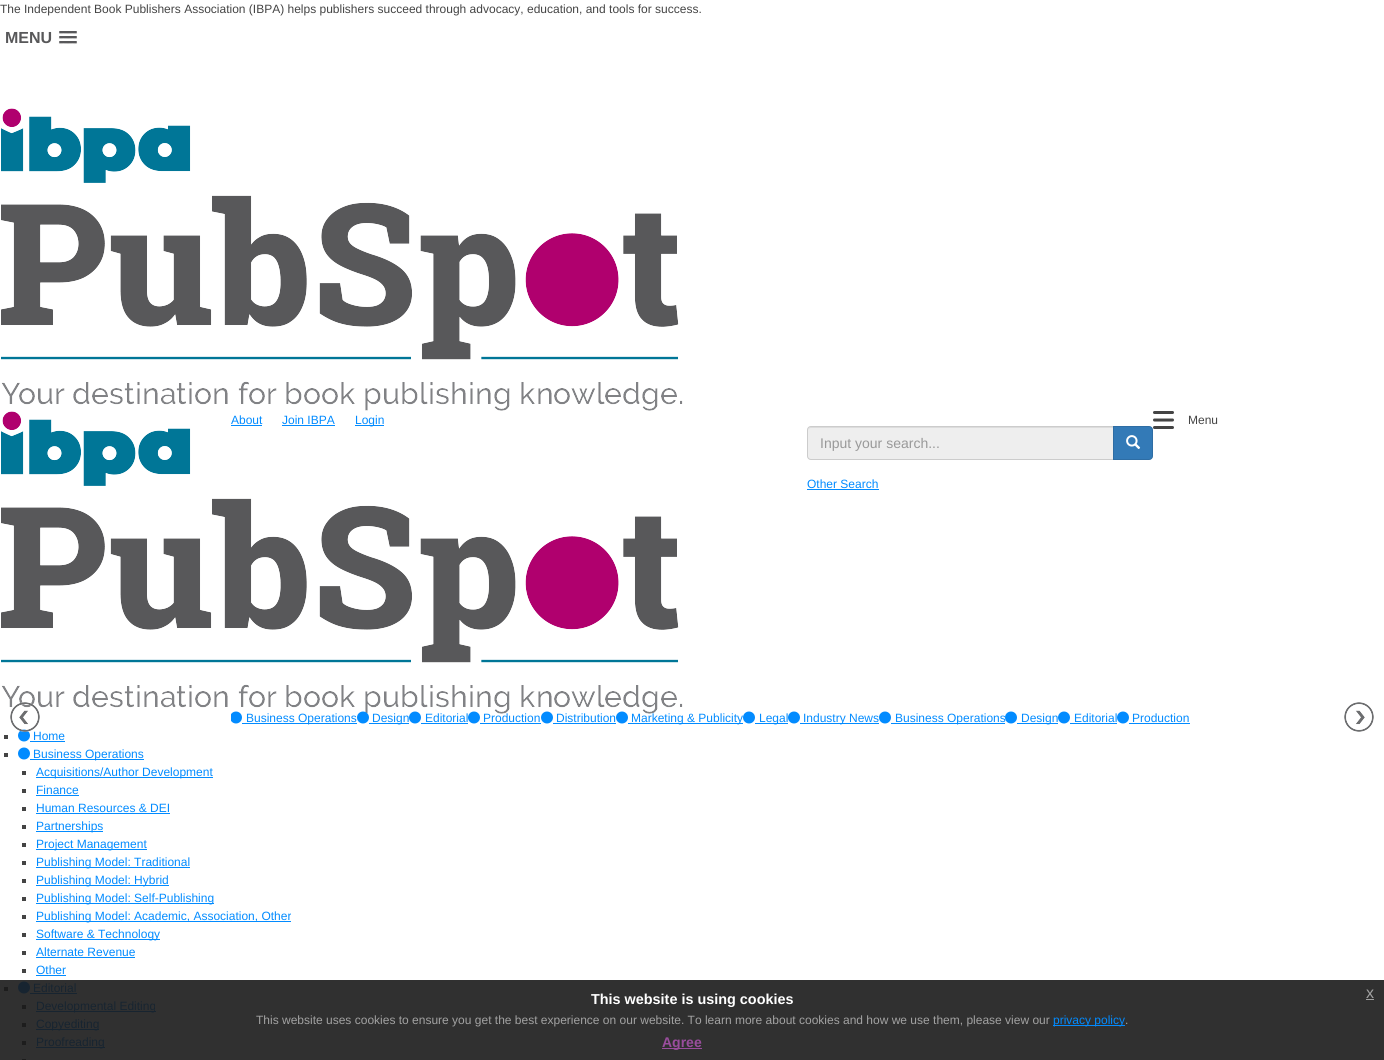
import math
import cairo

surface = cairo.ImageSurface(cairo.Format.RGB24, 1384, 1060)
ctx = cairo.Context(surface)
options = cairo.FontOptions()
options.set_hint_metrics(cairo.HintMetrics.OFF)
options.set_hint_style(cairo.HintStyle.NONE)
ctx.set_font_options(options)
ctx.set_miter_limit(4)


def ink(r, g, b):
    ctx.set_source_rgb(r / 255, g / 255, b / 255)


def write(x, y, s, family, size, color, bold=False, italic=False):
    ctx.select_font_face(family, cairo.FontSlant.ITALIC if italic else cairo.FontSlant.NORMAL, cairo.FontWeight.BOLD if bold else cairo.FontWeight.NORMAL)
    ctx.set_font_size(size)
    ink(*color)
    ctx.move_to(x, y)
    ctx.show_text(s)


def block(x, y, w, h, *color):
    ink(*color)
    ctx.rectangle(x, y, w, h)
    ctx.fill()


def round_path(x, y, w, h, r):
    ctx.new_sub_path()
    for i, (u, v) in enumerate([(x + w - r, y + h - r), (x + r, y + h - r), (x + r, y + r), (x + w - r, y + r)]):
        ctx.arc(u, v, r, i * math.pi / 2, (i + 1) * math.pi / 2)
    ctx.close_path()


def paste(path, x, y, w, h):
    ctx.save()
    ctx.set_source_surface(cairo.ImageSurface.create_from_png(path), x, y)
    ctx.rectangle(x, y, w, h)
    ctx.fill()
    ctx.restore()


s1 = dict(family="Liberation Sans", size=12, color=(68, 68, 68))
s2 = dict(family="Liberation Sans", size=16, color=(88, 88, 90), bold=True)
s3 = dict(family="Liberation Sans", size=12, color=(2, 139, 255))
s4 = dict(family="Liberation Sans", size=14, color=(153, 153, 153))
s5 = dict(family="Liberation Sans", size=12, color=(23, 36, 48))
s6 = dict(family="Liberation Sans", size=14.4, color=(255, 255, 255), bold=True)
s7 = dict(family="Liberation Sans", size=16, color=(162, 162, 162))
s8 = dict(family="Liberation Sans", size=12, color=(162, 162, 162))
s9 = dict(family="Liberation Sans", size=14, color=(154, 77, 157), bold=True)

ink(255, 255, 255)
ctx.paint()
block(0, 980, 1384, 80, 48, 48, 48)
write(0, 13, "The Independent Book Publishers Association (IBPA) helps publishers succeed through advocacy, education, and tools for success.", **s1)
write(5, 43, "MENU", **s2)
ink(191, 191, 191)
ctx.new_path()
ctx.move_to(59, 32.5)
ctx.curve_to(58, 34.5, 62.5, 34, 62.5, 34)
ctx.line_to(73.5, 34)
ctx.curve_to(73.5, 34, 78, 34.5, 77, 32.5)
ctx.curve_to(76, 33.5, 69.5, 33, 68, 33)
ctx.curve_to(66.5, 33, 60, 33.5, 59, 32.5)
ctx.close_path()
ctx.fill()
ink(88, 88, 90)
round_path(59, 31, 18, 2, 1)
ctx.fill()
ink(191, 191, 191)
ctx.new_path()
ctx.move_to(59, 37.5)
ctx.curve_to(58, 39.5, 62.5, 39, 62.5, 39)
ctx.line_to(73.5, 39)
ctx.curve_to(73.5, 39, 78, 39.5, 77, 37.5)
ctx.curve_to(76, 38.5, 69.5, 38, 68, 38)
ctx.curve_to(66.5, 38, 60, 38.5, 59, 37.5)
ctx.close_path()
ctx.fill()
ink(88, 88, 90)
round_path(59, 36, 18, 2, 1)
ctx.fill()
ink(191, 191, 191)
ctx.new_path()
ctx.move_to(59, 42.5)
ctx.curve_to(58, 44.5, 62.5, 44, 62.5, 44)
ctx.line_to(73.5, 44)
ctx.curve_to(73.5, 44, 78, 44.5, 77, 42.5)
ctx.curve_to(76, 43.5, 69.5, 43, 68, 43)
ctx.curve_to(66.5, 43, 60, 43.5, 59, 42.5)
ctx.close_path()
ctx.fill()
ink(88, 88, 90)
round_path(59, 41, 18, 2, 1)
ctx.fill()
paste("pic1.png", 1, 108, 682, 303)
paste("pic1.png", 1, 411, 682, 303)
write(231, 424, "About", **s3)
block(231, 425, 31, 1, 2, 139, 255)
write(282, 424, "Join IBPA", **s3)
block(282, 425, 53, 1, 2, 139, 255)
block(355, 425, 29, 1, 2, 139, 255)
write(355, 424, "Login", **s3)
paste("pic2.png", 1153, 411, 21, 18)
write(1188, 424, "Menu", **s1)
ink(238, 238, 238)
ctx.new_path()
ctx.move_to(811, 426)
ctx.line_to(1114, 426)
ctx.line_to(1114, 460)
ctx.line_to(811, 460)
ctx.curve_to(809, 460, 807, 458, 807, 456)
ctx.line_to(807, 430)
ctx.curve_to(807, 428, 809, 426, 811, 426)
ctx.close_path()
ctx.fill()
ink(220, 220, 220)
ctx.new_path()
ctx.move_to(811, 428)
ctx.line_to(1113, 428)
ctx.line_to(1113, 427)
ctx.line_to(811, 427)
ctx.curve_to(809, 427, 808, 429, 808, 431)
ctx.curve_to(808, 429, 809, 428, 811, 428)
ctx.close_path()
ctx.fill()
ctx.new_path()
ctx.move_to(811, 426.5)
ctx.line_to(1113.5, 426.5)
ctx.line_to(1113.5, 459.5)
ctx.line_to(811, 459.5)
ctx.curve_to(809, 459.5, 807.5, 458, 807.5, 456)
ctx.line_to(807.5, 430)
ctx.curve_to(807.5, 428, 809, 426.5, 811, 426.5)
ctx.close_path()
ink(204, 204, 204)
ctx.set_line_width(1)
ctx.stroke()
write(820, 448, "Input your search...", **s4)
ink(51, 122, 183)
ctx.new_path()
ctx.move_to(1113.5, 426.5)
ctx.line_to(1149, 426.5)
ctx.curve_to(1151, 426.5, 1152.5, 428, 1152.5, 430)
ctx.line_to(1152.5, 456)
ctx.curve_to(1152.5, 458, 1151, 459.5, 1149, 459.5)
ctx.line_to(1113.5, 459.5)
ctx.close_path()
ctx.fill_preserve()
ink(46, 109, 164)
ctx.stroke()
paste("pic3.png", 1126, 435, 15, 14)
write(807, 488, "Other Search", **s3)
block(807, 489, 72, 1, 2, 139, 255)
paste("pic7.png", 18, 729, 12, 13)
write(33, 740, "Home", **s3)
paste("pic4.png", 10, 702, 30, 30)
paste("pic5.png", 231, 711, 11, 13)
block(242, 723, 115, 1, 2, 139, 255)
write(246, 722, "Business Operations", **s3)
paste("pic6.png", 357, 711, 12, 13)
block(369, 723, 40, 1, 2, 139, 255)
write(372, 722, "Design", **s3)
paste("pic7.png", 409, 711, 12, 13)
write(425, 722, "Editorial", **s3)
block(421, 723, 47, 1, 2, 139, 255)
paste("pic7.png", 468, 711, 12, 13)
write(483, 722, "Production", **s3)
block(480, 723, 61, 1, 2, 139, 255)
paste("pic7.png", 541, 711, 12, 13)
write(556, 722, "Distribution", **s3)
block(553, 723, 63, 1, 2, 139, 255)
paste("pic7.png", 616, 711, 12, 13)
block(628, 723, 115, 1, 2, 139, 255)
write(631, 722, "Marketing & Publicity", **s3)
paste("pic8.png", 743, 711, 12, 13)
block(755, 723, 33, 1, 2, 139, 255)
write(759, 722, "Legal", **s3)
paste("pic7.png", 788, 711, 12, 13)
block(800, 723, 79, 1, 2, 139, 255)
write(803, 722, "Industry News", **s3)
paste("pic7.png", 879, 711, 12, 13)
block(891, 723, 114, 1, 2, 139, 255)
write(895, 722, "Business Operations", **s3)
paste("pic9.png", 1005, 711, 12, 13)
block(1017, 723, 41, 1, 2, 139, 255)
write(1021, 722, "Design", **s3)
paste("pic7.png", 1058, 711, 12, 13)
write(1074, 722, "Editorial", **s3)
block(1070, 723, 47, 1, 2, 139, 255)
paste("pic7.png", 1117, 711, 12, 13)
write(1132, 722, "Production", **s3)
block(1129, 723, 61, 1, 2, 139, 255)
paste("pic10.png", 1344, 702, 30, 30)
block(4, 735, 4, 4, 68, 68, 68)
block(30, 741, 35, 1, 2, 139, 255)
block(4, 753, 4, 4, 68, 68, 68)
paste("pic7.png", 18, 747, 12, 13)
block(30, 759, 114, 1, 2, 139, 255)
write(33, 758, "Business Operations", **s3)
block(22, 771, 4, 4, 68, 68, 68)
block(36, 777, 177, 1, 2, 139, 255)
write(36, 776, "Acquisitions/Author Development", **s3)
block(22, 789, 4, 4, 68, 68, 68)
write(36, 794, "Finance", **s3)
block(36, 795, 43, 1, 2, 139, 255)
block(22, 807, 4, 4, 68, 68, 68)
write(36, 812, "Human Resources & DEI", **s3)
block(36, 813, 134, 1, 2, 139, 255)
block(22, 825, 4, 4, 68, 68, 68)
block(36, 831, 67, 1, 2, 139, 255)
write(36, 830, "Partnerships", **s3)
block(22, 843, 4, 4, 68, 68, 68)
block(36, 849, 111, 1, 2, 139, 255)
write(36, 848, "Project Management", **s3)
block(22, 861, 4, 4, 68, 68, 68)
block(36, 867, 154, 1, 2, 139, 255)
write(36, 866, "Publishing Model: Traditional", **s3)
block(22, 879, 4, 4, 68, 68, 68)
block(36, 885, 133, 1, 2, 139, 255)
write(36, 884, "Publishing Model: Hybrid", **s3)
block(22, 897, 4, 4, 68, 68, 68)
block(36, 903, 178, 1, 2, 139, 255)
write(36, 902, "Publishing Model: Self-Publishing", **s3)
block(22, 915, 4, 4, 68, 68, 68)
block(36, 921, 255, 1, 2, 139, 255)
write(36, 920, "Publishing Model: Academic, Association, Other", **s3)
block(22, 933, 4, 4, 68, 68, 68)
block(36, 939, 124, 1, 2, 139, 255)
write(36, 938, "Software & Technology", **s3)
block(22, 951, 4, 4, 68, 68, 68)
write(36, 956, "Alternate Revenue", **s3)
block(36, 957, 99, 1, 2, 139, 255)
block(22, 969, 4, 4, 68, 68, 68)
write(36, 974, "Other", **s3)
block(36, 975, 30, 1, 2, 139, 255)
block(4, 987, 4, 4, 29, 29, 29)
paste("pic11.png", 18, 981, 12, 13)
write(33, 992, "Editorial", **s5)
block(30, 993, 47, 1, 23, 36, 48)
block(22, 1005, 4, 4, 29, 29, 29)
block(36, 1011, 120, 1, 23, 36, 48)
write(36, 1010, "Developmental Editing", **s5)
block(22, 1023, 4, 4, 29, 29, 29)
block(36, 1029, 63, 1, 23, 36, 48)
write(36, 1028, "Copyediting", **s5)
block(22, 1041, 4, 4, 29, 29, 29)
block(36, 1047, 69, 1, 23, 36, 48)
write(36, 1046, "Proofreading", **s5)
block(22, 1059, 4, 1, 29, 29, 29)
write(591, 1004, "This website is using cookies", **s6)
write(1366, 998, "x", **s7)
block(1366, 999, 8, 1, 162, 162, 162)
write(256, 1024, "This website uses cookies to ensure you get the best experience on our website. To learn more about cookies and how we use them, please view our", **s8)
block(1053, 1025, 72, 1, 2, 139, 255)
write(1053, 1024, "privacy policy", **s3)
write(1125, 1024, ".", **s8)
block(662, 1048, 40, 1, 154, 77, 157)
write(662, 1047, "Agree", **s9)
surface.write_to_png("screenshot.png")
